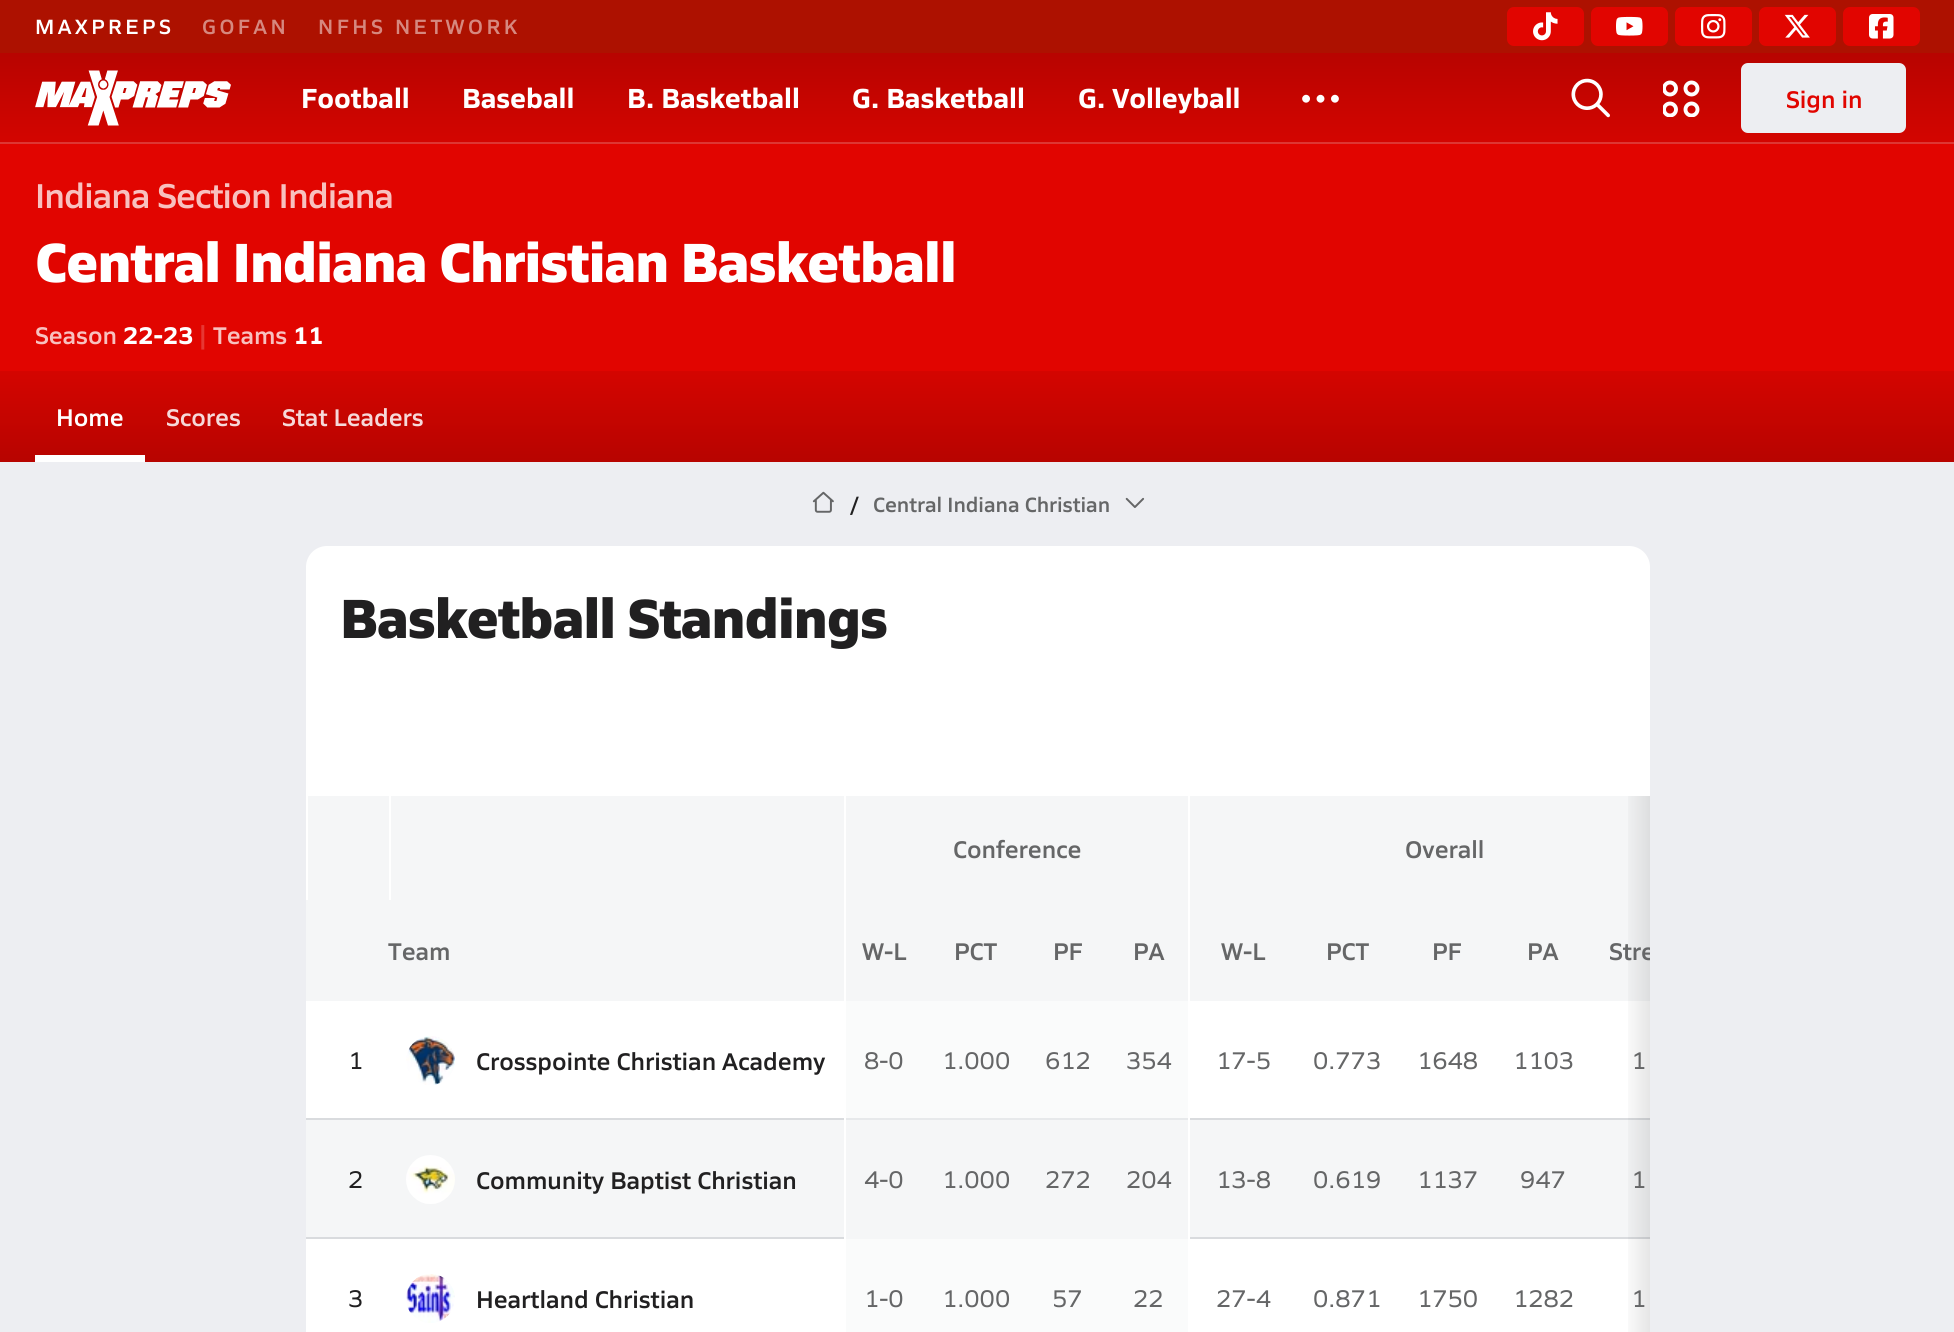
import math
import cairo

surface = cairo.ImageSurface(cairo.Format.RGB24, 1954, 1332)
ctx = cairo.Context(surface)
options = cairo.FontOptions()
options.set_hint_metrics(cairo.HintMetrics.OFF)
options.set_hint_style(cairo.HintStyle.NONE)
ctx.set_font_options(options)
ctx.set_miter_limit(4)


def ink(r, g, b):
    ctx.set_source_rgb(r / 255, g / 255, b / 255)


def write(x, y, s, family, size, color, bold=False, italic=False):
    ctx.select_font_face(family, cairo.FontSlant.ITALIC if italic else cairo.FontSlant.NORMAL, cairo.FontWeight.BOLD if bold else cairo.FontWeight.NORMAL)
    ctx.set_font_size(size)
    ink(*color)
    ctx.move_to(x, y)
    ctx.show_text(s)


def write_spaced(x, y, s, letter, word):
    ctx.move_to(x, y)
    for ch in s:
        ctx.show_text(ch)
        ctx.rel_move_to(letter + word * (ch == ' '), 0)


def block(x, y, w, h, *color):
    ink(*color)
    ctx.rectangle(x, y, w, h)
    ctx.fill()


def round_path(x, y, w, h, r):
    ctx.new_sub_path()
    for i, (u, v) in enumerate([(x + w - r, y + h - r), (x + r, y + h - r), (x + r, y + r), (x + w - r, y + r)]):
        ctx.arc(u, v, r, i * math.pi / 2, (i + 1) * math.pi / 2)
    ctx.close_path()


def paste(path, x, y, w, h):
    ctx.save()
    ctx.set_source_surface(cairo.ImageSurface.create_from_png(path), x, y)
    ctx.rectangle(x, y, w, h)
    ctx.fill()
    ctx.restore()


s1 = dict(family="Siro", size=28, color=(255, 255, 255), bold=True)
s2 = dict(family="Siro SemiBold", size=24.5, color=(225, 5, 0))
s3 = dict(family="Siro SemiBold", size=24.5, color=(248, 193, 191))
s4 = dict(family="Siro", size=24.5, color=(255, 255, 255), bold=True)
s5 = dict(family="Siro", size=24.5, color=(231, 55, 51), bold=True)
s6 = dict(family="Siro SemiBold", size=24.5, color=(255, 255, 255))
s7 = dict(family="Siro SemiBold", size=24.5, color=(246, 217, 217))
s8 = dict(family="Siro SemiBold", size=21, color=(33, 32, 33))
s9 = dict(family="Siro SemiBold", size=21, color=(101, 102, 103))
s10 = dict(family="Siro SemiBold", size=24.5, color=(101, 102, 103))
s11 = dict(family="Siro", size=24.5, color=(33, 32, 33))
s12 = dict(family="Siro SemiBold", size=24.5, color=(33, 32, 33))
s13 = dict(family="Siro", size=24.5, color=(101, 102, 103))

ink(237, 238, 242)
ctx.paint()
block(0, 0, 1954, 53, 173, 17, 0)
ctx.select_font_face("Siro SemiBold")
ctx.set_font_size(21)
ink(255, 255, 255)
write_spaced(35, 34, "MAXPREPS", 3.5, 0)
ink(214, 136, 127)
write_spaced(202, 34, "GOFAN", 3.5, 0)
write_spaced(318, 34, "NFHS NETWORK", 3.5, 0)
ink(225, 5, 0)
round_path(1507, 7, 77, 39, 7)
ctx.fill()
paste("pic1.png", 1533, 12, 25, 29)
round_path(1591, 7, 77, 39, 7)
ctx.fill()
paste("pic2.png", 1616, 16, 27, 20)
round_path(1675, 7, 77, 39, 7)
ctx.fill()
paste("pic3.png", 1701, 14, 25, 25)
round_path(1759, 7, 77, 39, 7)
ctx.fill()
paste("pic4.png", 1784, 14, 26, 24)
round_path(1843, 7, 77, 39, 7)
ctx.fill()
paste("pic5.png", 1869, 14, 25, 25)
gradient = cairo.LinearGradient(977, 52, 977, 144)
gradient.add_color_stop_rgba(0, 0.718, 0.016, 0, 1)
gradient.add_color_stop_rgba(1, 0.831, 0.02, 0, 1)
ctx.set_source(gradient)
ctx.rectangle(0, 53, 1954, 89)
ctx.fill()
paste("pic6.png", 35, 70, 196, 56)
write(301, 108, "Football", **s1)
write(462, 108, "Baseball", **s1)
write(627, 108, "B. Basketball", **s1)
write(852, 108, "G. Basketball", **s1)
write(1078, 108, "G. Volleyball", **s1)
paste("pic7.png", 1302, 94, 37, 9)
paste("pic8.png", 1571, 78, 39, 40)
ctx.save()
ctx.rectangle(1663, 79, 38, 38)
ctx.clip()
ctx.arc(1670, 88.5, 6, 0, 2 * math.pi)
ctx.set_line_width(3.9)
ctx.stroke()
ctx.restore()
ctx.arc(1691.5, 88.5, 6, 0, 2 * math.pi)
ctx.set_line_width(3.9)
ctx.stroke()
ctx.save()
ctx.rectangle(1663, 79, 38, 38)
ctx.clip()
ctx.arc(1670, 109.5, 6, 0, 2 * math.pi)
ctx.stroke()
ctx.arc(1691.5, 109.5, 6, 0, 2 * math.pi)
ctx.stroke()
ctx.restore()
ink(237, 238, 242)
round_path(1742, 64, 163, 68, 6)
ctx.fill_preserve()
ctx.set_line_width(2)
ctx.stroke()
write(1786, 108, "Sign in", **s2)
block(0, 142, 1954, 2, 221, 55, 51)
block(0, 144, 1954, 227, 225, 5, 0)
ctx.set_font_size(35)
ink(248, 193, 191)
write_spaced(35, 208, "Indiana Section Indiana", -0.85, 0)
ctx.select_font_face("Siro ExtraBold")
ctx.set_font_size(56)
ink(255, 255, 255)
write_spaced(35, 282, "Central Indiana Christian Basketball", -0.85, 0)
write(35, 344, "Season", **s3)
write(123, 344, "22-23", **s4)
write(199, 344, "|", **s5)
write(213, 344, "Teams", **s3)
write(293, 344, "11", **s4)
gradient = cairo.LinearGradient(977, 371, 977, 462)
gradient.add_color_stop_rgba(0, 0.831, 0.02, 0, 1)
gradient.add_color_stop_rgba(1, 0.718, 0.016, 0, 1)
ctx.set_source(gradient)
ctx.rectangle(0, 371, 1954, 91)
ctx.fill()
write(56, 426, "Home", **s6)
block(35, 455, 110, 7, 255, 255, 255)
write(166, 426, "Scores", **s7)
write(282, 426, "Stat Leaders", **s7)
paste("pic9.png", 812, 491, 22, 22)
write(850, 512, "/", **s8)
write(873, 512, "Central Indiana Christian", **s9)
paste("pic10.png", 1125, 497, 20, 11)
ink(255, 255, 255)
round_path(306, 546, 1344, 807, 21)
ctx.fill()
block(846, 1001, 342, 117, 250, 251, 251)
ctx.select_font_face("Siro ExtraBold")
ctx.set_font_size(56)
ink(33, 32, 33)
write_spaced(340, 638, "Basketball Standings", -0.85, 0)
block(1190, 796, 460, 104, 245, 246, 247)
block(1190, 900, 460, 101, 245, 246, 247)
block(306, 1118, 1344, 2, 217, 219, 222)
block(306, 1120, 1344, 117, 245, 246, 247)
block(306, 1237, 1344, 2, 217, 219, 222)
gradient = cairo.LinearGradient(1622, 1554, 1650, 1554)
gradient.add_color_stop_rgba(0, 0, 0, 0, 0)
gradient.add_color_stop_rgba(1, 0, 0, 0, 0.1)
ctx.set_source(gradient)
ctx.rectangle(1628, 796, 22, 536)
ctx.fill()
block(308, 796, 81, 104, 245, 246, 247)
block(391, 796, 453, 104, 245, 246, 247)
block(846, 796, 342, 104, 245, 246, 247)
write(953, 858, "Conference", **s10)
write(1405, 858, "Overall", **s10)
block(306, 900, 538, 101, 245, 246, 247)
write(388, 960, "Team", **s10)
block(846, 900, 342, 101, 245, 246, 247)
write(862, 960, "W-L", **s10)
write(954, 960, "PCT", **s10)
write(1053, 960, "PF", **s10)
write(1133, 960, "PA", **s10)
write(1221, 960, "W-L", **s10)
write(1326, 960, "PCT", **s10)
write(1432, 960, "PF", **s10)
write(1527, 960, "PA", **s10)
ctx.save()
ctx.rectangle(306, 796, 1344, 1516)
ctx.clip()
write(1609, 960, "Stre", **s10)
ctx.restore()
block(844, 1118, 344, 2, 231, 233, 235)
write(348, 1069, "1", **s11)
paste("pic11.png", 406, 1036, 49, 49)
write(476, 1070, "Crosspointe Christian Academy", **s12)
block(844, 1118, 2, 2, 255, 255, 255)
write(864, 1069, "8-0", **s13)
write(942, 1069, "1.000", **s13)
write(1045, 1069, "612", **s13)
write(1126, 1069, "354", **s13)
block(1188, 1118, 2, 2, 255, 255, 255)
write(1216, 1069, "17-5", **s13)
write(1313, 1069, "0.773", **s13)
write(1417, 1069, "1648", **s13)
write(1513, 1069, "1103", **s13)
write(1631, 1069, "1", **s13)
write(348, 1188, "2", **s11)
paste("pic12.png", 406, 1155, 49, 49)
write(476, 1189, "Community Baptist Christian", **s12)
block(846, 1237, 342, 2, 245, 246, 247)
block(844, 1120, 2, 119, 255, 255, 255)
write(864, 1188, "4-0", **s13)
write(942, 1188, "1.000", **s13)
write(1045, 1188, "272", **s13)
write(1126, 1188, "204", **s13)
block(1188, 1120, 2, 119, 255, 255, 255)
write(1216, 1188, "13-8", **s13)
write(1313, 1188, "0.619", **s13)
write(1417, 1188, "1137", **s13)
write(1520, 1188, "947", **s13)
write(1631, 1188, "1", **s13)
write(348, 1307, "3", **s11)
paste("pic13.png", 406, 1274, 49, 49)
write(476, 1308, "Heartland Christian", **s12)
block(846, 1239, 342, 93, 250, 251, 251)
write(864, 1307, "1-0", **s13)
write(942, 1307, "1.000", **s13)
write(1052, 1307, "57", **s13)
write(1133, 1307, "22", **s13)
write(1216, 1307, "27-4", **s13)
write(1313, 1307, "0.871", **s13)
write(1417, 1307, "1750", **s13)
write(1513, 1307, "1282", **s13)
write(1631, 1307, "1", **s13)
surface.write_to_png("screenshot.png")
